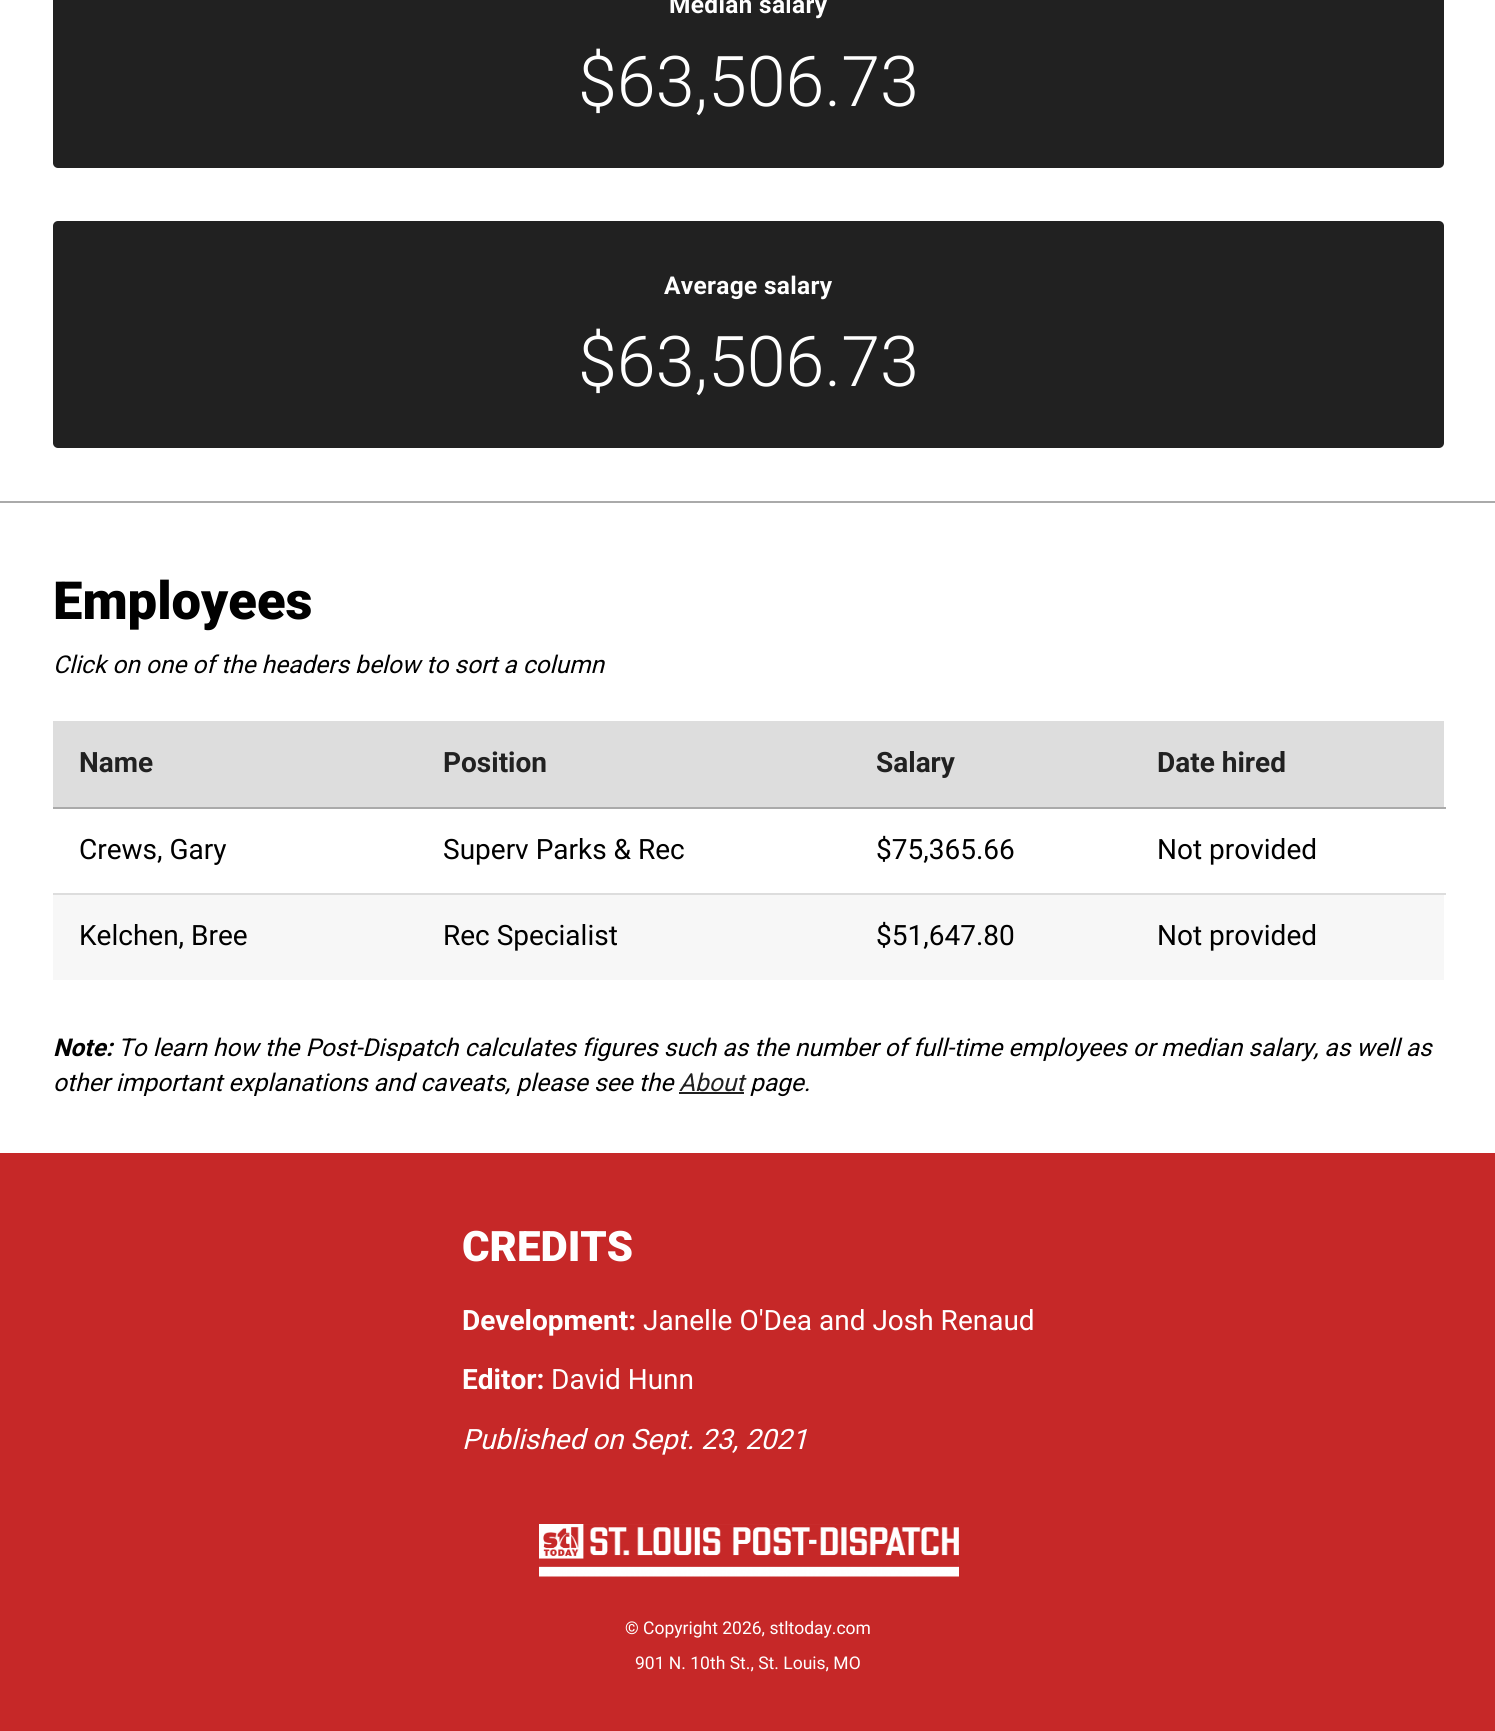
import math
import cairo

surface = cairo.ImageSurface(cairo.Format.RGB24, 1495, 1731)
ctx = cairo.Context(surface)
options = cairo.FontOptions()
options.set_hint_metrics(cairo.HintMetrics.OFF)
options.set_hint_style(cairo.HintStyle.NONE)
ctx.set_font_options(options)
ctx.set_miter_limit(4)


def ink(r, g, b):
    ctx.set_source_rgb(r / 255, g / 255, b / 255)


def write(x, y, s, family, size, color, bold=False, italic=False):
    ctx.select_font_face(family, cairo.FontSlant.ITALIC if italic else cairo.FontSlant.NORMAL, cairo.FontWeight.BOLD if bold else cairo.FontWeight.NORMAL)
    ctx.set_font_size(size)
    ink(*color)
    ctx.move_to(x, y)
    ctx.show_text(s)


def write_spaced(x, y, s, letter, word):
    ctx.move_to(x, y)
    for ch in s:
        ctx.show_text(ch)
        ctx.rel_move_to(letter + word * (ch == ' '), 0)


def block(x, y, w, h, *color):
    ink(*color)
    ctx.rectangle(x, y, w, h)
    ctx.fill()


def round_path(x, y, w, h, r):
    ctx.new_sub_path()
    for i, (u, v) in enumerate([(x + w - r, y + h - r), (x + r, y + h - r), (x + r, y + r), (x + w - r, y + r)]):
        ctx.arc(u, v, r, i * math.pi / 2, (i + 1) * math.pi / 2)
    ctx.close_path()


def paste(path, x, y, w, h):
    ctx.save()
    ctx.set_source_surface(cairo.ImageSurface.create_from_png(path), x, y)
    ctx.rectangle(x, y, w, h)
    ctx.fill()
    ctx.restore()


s1 = dict(family="Roboto Light", size=70, color=(255, 255, 255))
s2 = dict(family="Roboto Black", size=52.5, color=(0, 0, 0))
s3 = dict(family="Roboto", size=24.5, color=(0, 0, 0), italic=True)
s4 = dict(family="Roboto", size=28, color=(33, 33, 33), bold=True)
s5 = dict(family="Roboto", size=28, color=(0, 0, 0))
s6 = dict(family="Roboto", size=24.5, color=(0, 0, 0), bold=True, italic=True)
s7 = dict(family="Roboto", size=24.5, color=(33, 33, 33), italic=True)
s8 = dict(family="Roboto Black", size=42, color=(255, 255, 255))
s9 = dict(family="Roboto", size=28, color=(255, 255, 255), bold=True)
s10 = dict(family="Roboto", size=28, color=(255, 255, 255))
s11 = dict(family="Roboto", size=28, color=(255, 255, 255), italic=True)
s12 = dict(family="Roboto", size=17.5, color=(255, 255, 255))

ink(255, 255, 255)
ctx.paint()
block(0, 501, 1495, 2, 170, 170, 170)
ink(33, 33, 33)
round_path(53, -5, 1391, 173, 5)
ctx.fill()
ctx.select_font_face("Roboto", cairo.FontSlant.NORMAL, cairo.FontWeight.BOLD)
ctx.set_font_size(24.5)
ink(255, 255, 255)
write_spaced(669, 13, "Median salary", 0.3, 0)
write(578, 106, "$63,506.73", **s1)
ink(33, 33, 33)
round_path(53, 221, 1391, 227, 5)
ctx.fill()
ctx.select_font_face("Roboto", cairo.FontSlant.NORMAL, cairo.FontWeight.BOLD)
ctx.set_font_size(24.5)
ink(255, 255, 255)
write_spaced(664, 294, "Average salary", 0.3, 0)
write(578, 386, "$63,506.73", **s1)
write(53, 619, "Employees", **s2)
write(53, 673, "Click on one of the headers below to sort a column", **s3)
block(53, 721, 1391, 86, 221, 221, 221)
block(53, 807, 1393, 2, 170, 170, 170)
write(79, 772, "Name", **s4)
write(443, 772, "Position", **s4)
write(876, 772, "Salary", **s4)
write(1157, 772, "Date hired", **s4)
block(53, 893, 1393, 2, 221, 221, 221)
write(79, 859, "Crews, Gary", **s5)
write(443, 859, "Superv Parks & Rec", **s5)
write(876, 859, "$75,365.66", **s5)
write(1157, 859, "Not provided", **s5)
block(53, 895, 1391, 85, 247, 247, 247)
write(79, 945, "Kelchen, Bree", **s5)
write(443, 945, "Rec Specialist", **s5)
write(876, 945, "$51,647.80", **s5)
write(1157, 945, "Not provided", **s5)
write(53, 1056, "Note:", **s6)
write(118, 1056, "To learn how the Post-Dispatch calculates figures such as the number of full-time employees or median salary, as well as", **s3)
write(53, 1091, "other important explanations and caveats, please see the", **s3)
write(679, 1091, "About", **s7)
block(679, 1092, 65, 2, 33, 33, 33)
write(750, 1091, "page.", **s3)
block(0, 1153, 1495, 578, 198, 40, 40)
write(462, 1261, "CREDITS", **s8)
write(462, 1330, "Development:", **s9)
write(643, 1330, "Janelle O'Dea and Josh Renaud", **s10)
write(462, 1389, "Editor:", **s9)
write(551, 1389, "David Hunn", **s10)
write(462, 1449, "Published on Sept. 23, 2021", **s11)
paste("pic1.png", 539, 1524, 420, 53)
write(625, 1634, "© Copyright 2026, stltoday.com", **s12)
write(635, 1669, "901 N. 10th St., St. Louis, MO", **s12)
surface.write_to_png("screenshot.png")
